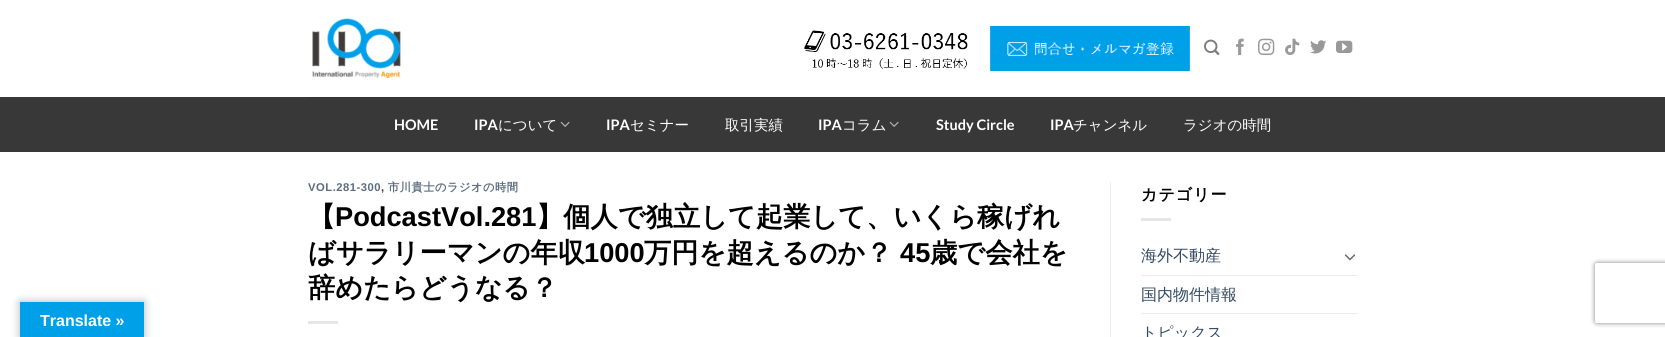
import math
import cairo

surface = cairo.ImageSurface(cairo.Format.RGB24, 1665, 337)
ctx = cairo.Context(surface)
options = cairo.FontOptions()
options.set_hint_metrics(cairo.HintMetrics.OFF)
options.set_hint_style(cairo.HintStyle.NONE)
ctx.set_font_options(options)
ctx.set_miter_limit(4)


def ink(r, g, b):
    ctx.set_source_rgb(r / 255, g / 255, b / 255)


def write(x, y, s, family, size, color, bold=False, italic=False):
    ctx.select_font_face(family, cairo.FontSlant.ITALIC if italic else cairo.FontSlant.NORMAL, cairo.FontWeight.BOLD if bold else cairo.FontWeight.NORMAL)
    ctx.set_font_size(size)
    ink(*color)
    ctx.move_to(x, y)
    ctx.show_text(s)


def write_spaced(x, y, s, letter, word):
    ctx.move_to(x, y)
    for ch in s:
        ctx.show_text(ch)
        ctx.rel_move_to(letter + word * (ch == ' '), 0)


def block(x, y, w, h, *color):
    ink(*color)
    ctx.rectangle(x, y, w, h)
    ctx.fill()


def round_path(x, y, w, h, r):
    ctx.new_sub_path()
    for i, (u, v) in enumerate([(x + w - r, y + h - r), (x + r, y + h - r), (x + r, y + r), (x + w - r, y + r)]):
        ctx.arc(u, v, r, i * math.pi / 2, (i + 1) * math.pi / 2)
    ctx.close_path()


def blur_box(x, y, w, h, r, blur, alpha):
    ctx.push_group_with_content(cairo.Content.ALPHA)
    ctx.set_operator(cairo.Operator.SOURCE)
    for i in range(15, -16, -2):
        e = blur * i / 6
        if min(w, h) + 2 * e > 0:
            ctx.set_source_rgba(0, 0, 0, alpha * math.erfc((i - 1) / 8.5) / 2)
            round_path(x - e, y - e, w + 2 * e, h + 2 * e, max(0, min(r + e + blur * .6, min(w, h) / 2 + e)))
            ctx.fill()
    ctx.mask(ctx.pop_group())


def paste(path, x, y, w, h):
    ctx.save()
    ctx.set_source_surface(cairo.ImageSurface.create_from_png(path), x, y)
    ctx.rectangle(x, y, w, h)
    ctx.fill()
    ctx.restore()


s1 = dict(family="Liberation Sans", size=16, color=(255, 255, 255), bold=True)
s2 = dict(family="Lato", size=14.5, color=(255, 255, 255), bold=True)
s3 = dict(family="WenQuanYi Zen Hei Medium", size=14.5, color=(255, 255, 255))
s4 = dict(family="WenQuanYi Zen Hei", size=27.25, color=(0, 0, 0), bold=True)
s5 = dict(family="Liberation Sans", size=27.25, color=(0, 0, 0), bold=True)
s6 = dict(family="WenQuanYi Zen Hei Medium", size=16, color=(51, 72, 98))

ink(255, 255, 255)
ctx.paint()
ink(0, 0, 0)
blur_box(20, 302, 124, 35, 0, 4.5, 0.3)
block(20, 302, 124, 35, 0, 160, 233)
write(40, 326, "Translate »", **s1)
paste("pic1.png", 312, 18, 89, 61)
paste("pic2.png", 804, 30, 164, 39)
paste("pic3.png", 990, 26, 200, 45)
paste("pic4.png", 1204, 39, 16, 16)
paste("pic5.png", 1236, 38, 8, 17)
paste("pic6.png", 1258, 38, 17, 17)
paste("pic7.png", 1285, 38, 15, 17)
paste("pic8.png", 1310, 40, 16, 14)
paste("pic9.png", 1336, 40, 17, 13)
block(0, 97, 1665, 55, 56, 56, 56)
block(308, 97, 1050, 1, 50, 50, 50)
write(394, 130, "HOME", **s2)
write(474, 130, "IPA", **s2)
write(498, 130, "について", **s3)
paste("pic10.png", 560, 121, 10, 6)
write(606, 130, "IPA", **s2)
write(630, 130, "セミナー", **s3)
write(725, 130, "取引実績", **s3)
write(818, 130, "IPA", **s2)
write(842, 130, "コラム", **s3)
paste("pic10.png", 889, 121, 10, 6)
write(936, 130, "Study Circle", **s2)
write(1050, 130, "IPA", **s2)
write(1073, 130, "チャンネル", **s3)
write(1183, 130, "ラジオの時間", **s3)
ctx.select_font_face("Liberation Sans", cairo.FontSlant.NORMAL, cairo.FontWeight.BOLD)
ctx.set_font_size(11.25)
ink(92, 109, 129)
write_spaced(308, 191, "VOL.281-300", 0.5, 0)
ink(51, 51, 51)
write_spaced(381, 191, ",", 0.5, 0)
ctx.select_font_face("WenQuanYi Zen Hei", cairo.FontSlant.NORMAL, cairo.FontWeight.BOLD)
ink(92, 109, 129)
write_spaced(388, 191, "市川貴士のラジオの時間", 0.5, 0)
write(308, 226, "【", **s4)
write(335, 226, "PodcastVol.281", **s5)
write(536, 226, "】個人で独立して起業して、いくら稼げれ", **s4)
write(308, 262, "ばサラリーマンの年収", **s4)
write(584, 262, "1000", **s5)
write(644, 262, "万円を超えるのか？", **s4)
write(900, 262, "45", **s5)
write(930, 262, "歳で会社を", **s4)
write(308, 297, "辞めたらどうなる？", **s4)
block(308, 321, 30, 3, 230, 230, 230)
block(1110, 182, 1, 155, 236, 236, 236)
ctx.set_font_size(16)
ink(0, 0, 0)
write_spaced(1141, 200, "カテゴリー", 1, 0)
block(1141, 218, 30, 3, 230, 230, 230)
write(1141, 261, "海外不動産", **s6)
paste("pic11.png", 1344, 254, 12, 7)
block(1141, 275, 217, 1, 236, 236, 236)
write(1141, 300, "国内物件情報", **s6)
block(1141, 313, 217, 1, 236, 236, 236)
write(1141, 338, "トピックス", **s6)
ctx.save()
ctx.set_fill_rule(cairo.FillRule.EVEN_ODD)
ctx.new_path()
ctx.move_to(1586, 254)
ctx.line_to(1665, 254)
ctx.line_to(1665, 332)
ctx.line_to(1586, 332)
ctx.close_path()
ctx.move_to(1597, 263)
ctx.line_to(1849, 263)
ctx.curve_to(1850, 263, 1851, 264, 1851, 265)
ctx.line_to(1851, 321)
ctx.curve_to(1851, 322, 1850, 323, 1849, 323)
ctx.line_to(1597, 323)
ctx.curve_to(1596, 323, 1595, 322, 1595, 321)
ctx.line_to(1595, 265)
ctx.curve_to(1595, 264, 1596, 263, 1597, 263)
ctx.close_path()
ctx.clip()
ink(128, 128, 128)
blur_box(1595, 263, 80, 60, 2, 2.5, 1)
ctx.restore()
surface.write_to_png("screenshot.png")
